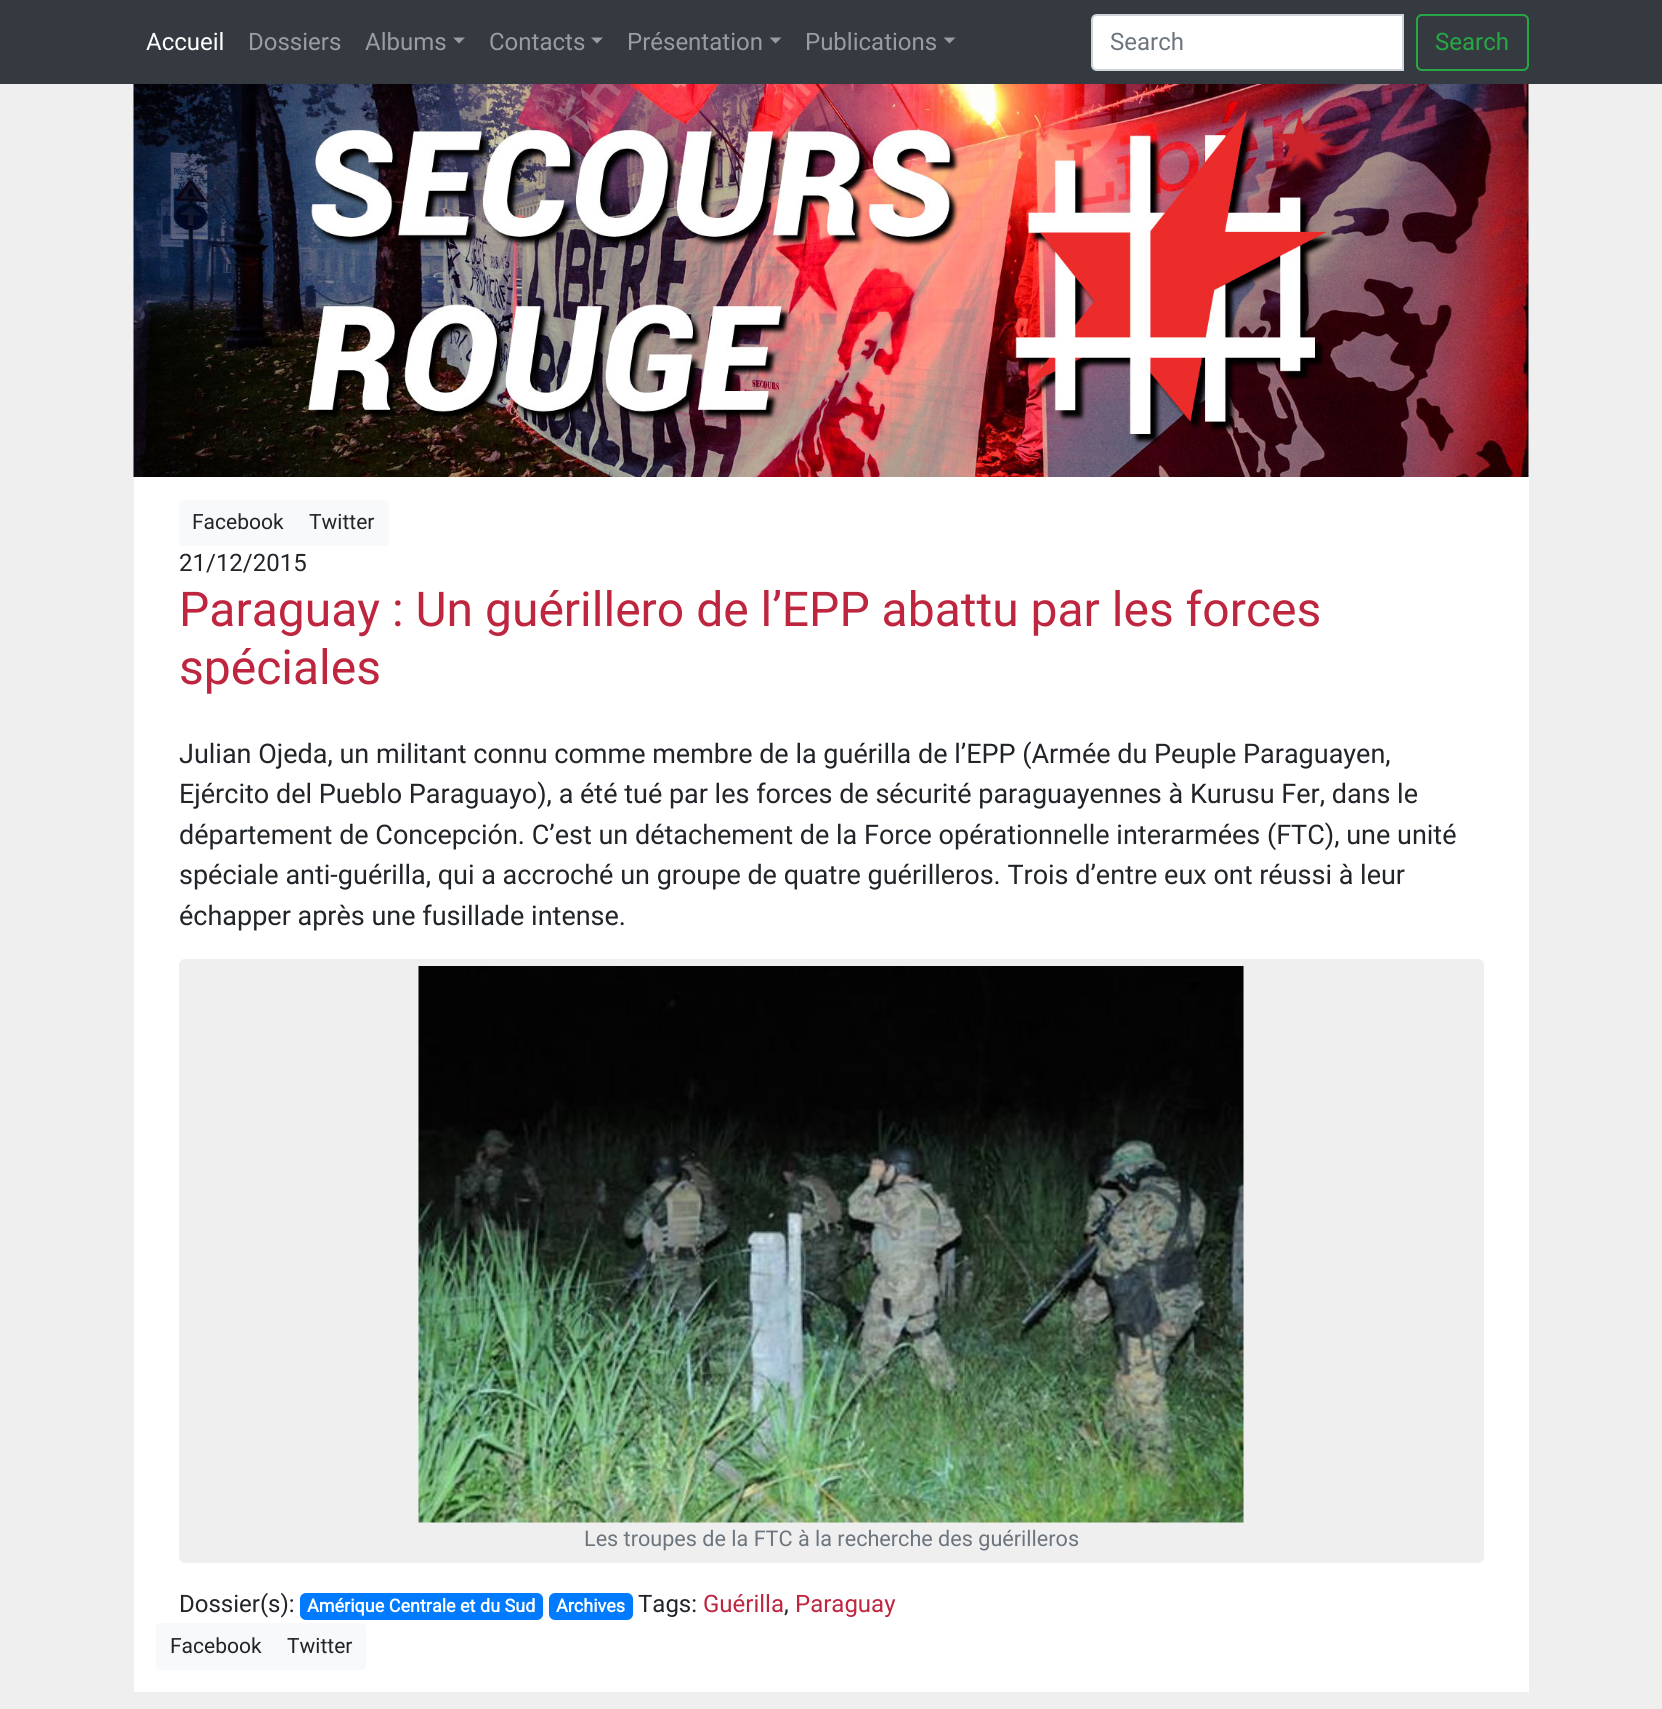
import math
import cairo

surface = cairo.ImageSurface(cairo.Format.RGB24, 1662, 1709)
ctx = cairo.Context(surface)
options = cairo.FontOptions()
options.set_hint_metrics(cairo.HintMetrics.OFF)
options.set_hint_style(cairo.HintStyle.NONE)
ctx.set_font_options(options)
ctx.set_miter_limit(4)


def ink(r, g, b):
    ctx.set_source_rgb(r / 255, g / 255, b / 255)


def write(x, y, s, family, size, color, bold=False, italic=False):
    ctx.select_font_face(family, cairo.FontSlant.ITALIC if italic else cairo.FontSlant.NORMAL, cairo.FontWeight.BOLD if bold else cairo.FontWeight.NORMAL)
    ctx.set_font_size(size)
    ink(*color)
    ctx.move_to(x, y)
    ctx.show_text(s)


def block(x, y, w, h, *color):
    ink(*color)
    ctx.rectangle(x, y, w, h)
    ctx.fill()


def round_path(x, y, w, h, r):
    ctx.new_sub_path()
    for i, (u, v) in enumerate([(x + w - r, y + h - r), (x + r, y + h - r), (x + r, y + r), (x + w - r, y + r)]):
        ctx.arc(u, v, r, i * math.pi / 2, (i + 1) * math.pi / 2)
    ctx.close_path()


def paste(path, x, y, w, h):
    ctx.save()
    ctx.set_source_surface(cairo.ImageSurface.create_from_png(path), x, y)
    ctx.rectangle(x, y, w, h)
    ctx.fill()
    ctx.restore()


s1 = dict(family="Roboto", size=24, color=(255, 255, 255))
s2 = dict(family="Roboto", size=24, color=(154, 157, 160))
s3 = dict(family="Roboto", size=24, color=(108, 117, 125))
s4 = dict(family="Roboto", size=24, color=(40, 167, 69))
s5 = dict(family="Roboto", size=21, color=(33, 37, 41))
s6 = dict(family="Roboto", size=24, color=(33, 37, 41))
s7 = dict(family="Roboto", size=48, color=(190, 37, 63))
s8 = dict(family="Roboto", size=27, color=(33, 37, 41))
s9 = dict(family="Roboto", size=21.6, color=(108, 117, 125))
s10 = dict(family="Roboto", size=18, color=(255, 255, 255), bold=True)
s11 = dict(family="Roboto", size=24, color=(190, 37, 63))

ink(239, 239, 239)
ctx.paint()
block(0, 0, 1662, 84, 52, 58, 64)
write(146, 50, "Accueil", **s1)
write(248, 50, "Dossiers", **s2)
write(365, 50, "Albums", **s2)
ctx.new_path()
ctx.move_to(453, 37.5)
ctx.line_to(465, 37.5)
ctx.line_to(459, 43.5)
ctx.close_path()
ctx.fill()
write(489, 50, "Contacts", **s2)
ctx.new_path()
ctx.move_to(591, 37.5)
ctx.line_to(603, 37.5)
ctx.line_to(597, 43.5)
ctx.close_path()
ctx.fill()
write(627, 50, "Présentation", **s2)
ctx.new_path()
ctx.move_to(769.5, 37.5)
ctx.line_to(781.5, 37.5)
ctx.line_to(775.5, 43.5)
ctx.close_path()
ctx.fill()
write(805, 50, "Publications", **s2)
ctx.new_path()
ctx.move_to(943.5, 37.5)
ctx.line_to(955.5, 37.5)
ctx.line_to(949.5, 43.5)
ctx.close_path()
ctx.fill()
ink(255, 255, 255)
ctx.new_path()
ctx.move_to(1097, 15)
ctx.line_to(1403, 15)
ctx.line_to(1403, 70)
ctx.line_to(1097, 70)
ctx.curve_to(1094, 70, 1092, 68, 1092, 65)
ctx.line_to(1092, 20)
ctx.curve_to(1092, 17, 1094, 15, 1097, 15)
ctx.close_path()
ctx.fill_preserve()
ink(206, 212, 218)
ctx.stroke()
write(1110, 50, "Search", **s3)
round_path(1417, 15, 111, 55, 5)
ink(40, 167, 69)
ctx.stroke()
write(1435, 50, "Search", **s4)
paste("pic1.png", 133, 84, 1396, 393)
block(134, 477, 1395, 1215, 255, 255, 255)
ink(248, 249, 250)
ctx.new_path()
ctx.move_to(184, 500)
ctx.line_to(297, 500)
ctx.line_to(297, 546)
ctx.line_to(184, 546)
ctx.curve_to(181, 546, 179, 544, 179, 541)
ctx.line_to(179, 505)
ctx.curve_to(179, 502, 181, 500, 184, 500)
ctx.close_path()
ctx.fill()
write(192, 529, "Facebook", **s5)
ink(248, 249, 250)
ctx.new_path()
ctx.move_to(296, 500)
ctx.line_to(384, 500)
ctx.curve_to(387, 500, 389, 502, 389, 505)
ctx.line_to(389, 541)
ctx.curve_to(389, 544, 387, 546, 384, 546)
ctx.line_to(296, 546)
ctx.close_path()
ctx.fill()
write(309, 529, "Twitter", **s5)
write(179, 571, "21/12/2015", **s6)
write(179, 626, "Paraguay : Un guérillero de l’EPP abattu par les forces", **s7)
write(179, 684, "spéciales", **s7)
write(179, 763, "Julian Ojeda, un militant connu comme membre de la guérilla de l’EPP (Armée du Peuple Paraguayen,", **s8)
write(179, 803, "Ejército del Pueblo Paraguayo), a été tué par les forces de sécurité paraguayennes à Kurusu Fer, dans le", **s8)
write(179, 844, "département de Concepción. C’est un détachement de la Force opérationnelle interarmées (FTC), une unité", **s8)
write(179, 884, "spéciale anti-guérilla, qui a accroché un groupe de quatre guérilleros. Trois d’entre eux ont réussi à leur", **s8)
write(179, 925, "échapper après une fusillade intense.", **s8)
ink(239, 239, 239)
round_path(179, 959, 1305, 604, 6)
ctx.fill()
paste("pic2.png", 418, 966, 826, 557)
write(584, 1546, "Les troupes de la FTC à la recherche des guérilleros", **s9)
write(179, 1612, "Dossier(s):", **s6)
ink(0, 123, 255)
round_path(300, 1593, 243, 27, 6)
ctx.fill()
write(307, 1612, "Amérique Centrale et du Sud", **s10)
ink(0, 123, 255)
round_path(549, 1593, 84, 27, 6)
ctx.fill()
write(556, 1612, "Archives", **s10)
write(638, 1612, "Tags:", **s6)
write(703, 1612, "Guérilla", **s11)
write(784, 1612, ",", **s6)
write(795, 1612, "Paraguay", **s11)
ink(248, 249, 250)
ctx.new_path()
ctx.move_to(161, 1623)
ctx.line_to(275, 1623)
ctx.line_to(275, 1670)
ctx.line_to(161, 1670)
ctx.curve_to(158, 1670, 156, 1668, 156, 1665)
ctx.line_to(156, 1628)
ctx.curve_to(156, 1625, 158, 1623, 161, 1623)
ctx.close_path()
ctx.fill()
write(170, 1653, "Facebook", **s5)
ink(248, 249, 250)
ctx.new_path()
ctx.move_to(273, 1623)
ctx.line_to(361, 1623)
ctx.curve_to(364, 1623, 366, 1625, 366, 1628)
ctx.line_to(366, 1665)
ctx.curve_to(366, 1668, 364, 1670, 361, 1670)
ctx.line_to(273, 1670)
ctx.close_path()
ctx.fill()
write(287, 1653, "Twitter", **s5)
surface.write_to_png("screenshot.png")
